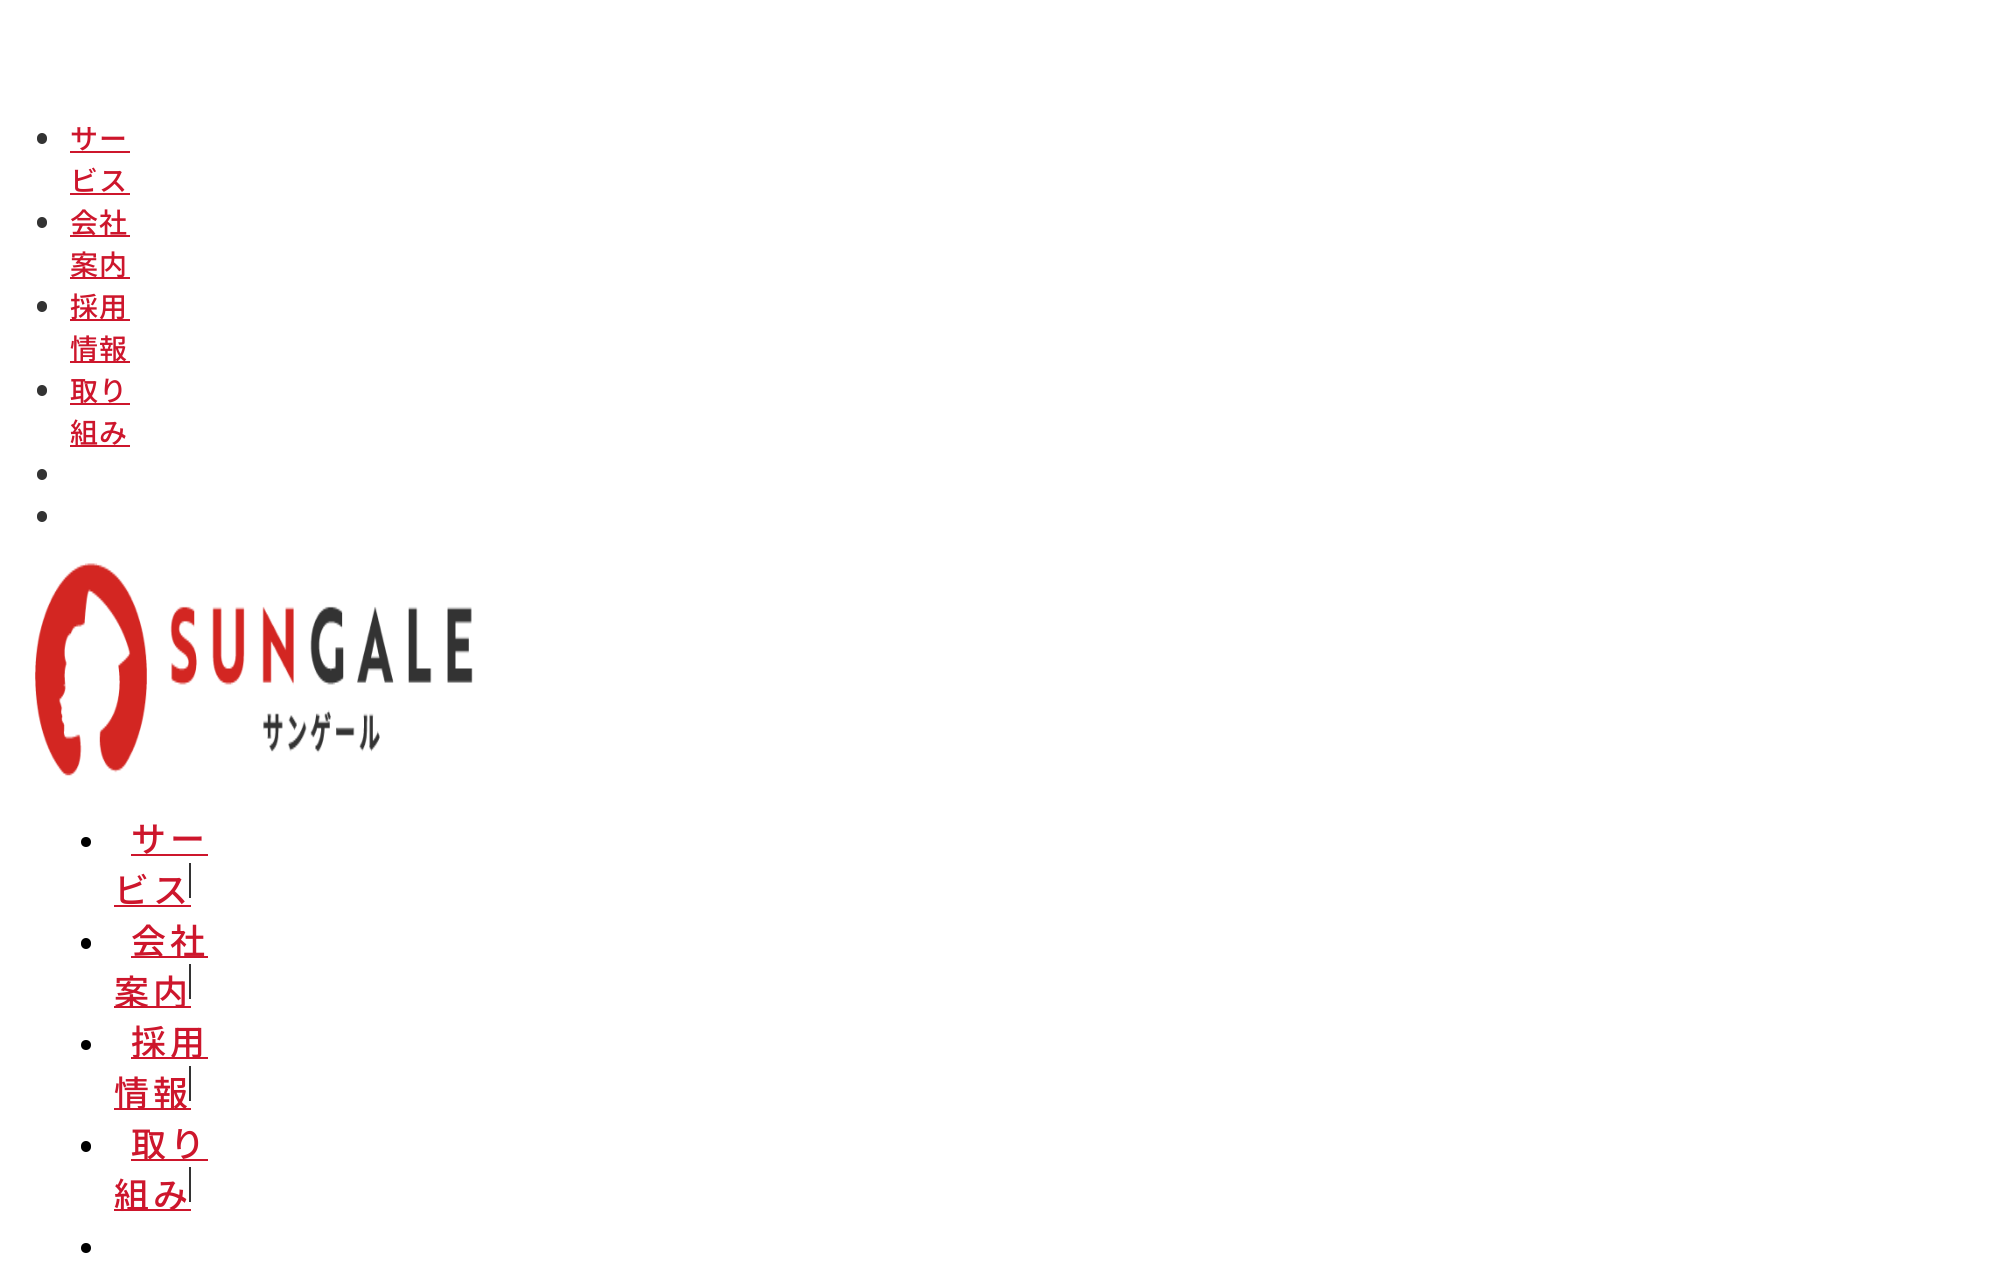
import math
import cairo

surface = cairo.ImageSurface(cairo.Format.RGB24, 2001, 1282)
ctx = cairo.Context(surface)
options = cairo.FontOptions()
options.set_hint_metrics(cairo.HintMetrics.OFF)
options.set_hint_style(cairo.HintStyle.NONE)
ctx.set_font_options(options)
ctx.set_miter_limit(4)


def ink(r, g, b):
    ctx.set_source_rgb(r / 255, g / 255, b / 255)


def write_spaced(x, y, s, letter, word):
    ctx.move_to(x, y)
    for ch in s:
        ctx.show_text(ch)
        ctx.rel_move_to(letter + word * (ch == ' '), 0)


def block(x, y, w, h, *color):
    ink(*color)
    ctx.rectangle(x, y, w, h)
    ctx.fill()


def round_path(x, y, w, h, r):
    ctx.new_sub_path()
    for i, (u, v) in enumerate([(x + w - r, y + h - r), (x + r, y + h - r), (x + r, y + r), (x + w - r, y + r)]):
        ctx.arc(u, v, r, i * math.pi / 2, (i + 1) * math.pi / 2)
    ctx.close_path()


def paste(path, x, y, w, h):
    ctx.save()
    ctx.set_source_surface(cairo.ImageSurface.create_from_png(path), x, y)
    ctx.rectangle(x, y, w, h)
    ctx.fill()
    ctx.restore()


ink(255, 255, 255)
ctx.paint()
ink(51, 51, 51)
round_path(37, 133, 10, 11, 5)
ctx.fill()
ctx.select_font_face("Noto Sans JP Medium")
ctx.set_font_size(28)
ink(205, 22, 44)
write_spaced(70, 149, "サー", 1, 0)
block(70, 151, 60, 2, 205, 22, 44)
write_spaced(70, 191, "ビス", 1, 0)
block(70, 193, 60, 2, 205, 22, 44)
ink(51, 51, 51)
round_path(37, 217, 10, 11, 5)
ctx.fill()
block(70, 235, 60, 2, 205, 22, 44)
write_spaced(70, 233, "会社", 1, 0)
block(70, 277, 60, 2, 205, 22, 44)
write_spaced(70, 275, "案内", 1, 0)
ink(51, 51, 51)
round_path(37, 301, 10, 11, 5)
ctx.fill()
block(70, 319, 60, 2, 205, 22, 44)
write_spaced(70, 317, "採用", 1, 0)
block(70, 361, 60, 2, 205, 22, 44)
write_spaced(70, 359, "情報", 1, 0)
ink(51, 51, 51)
round_path(37, 385, 10, 11, 5)
ctx.fill()
block(70, 403, 60, 2, 205, 22, 44)
write_spaced(70, 401, "取り", 1, 0)
block(70, 445, 60, 2, 205, 22, 44)
write_spaced(70, 443, "組み", 1, 0)
ink(51, 51, 51)
round_path(37, 469, 10, 11, 5)
ctx.fill()
round_path(37, 511, 10, 11, 5)
ctx.fill()
paste("pic1.png", 35, 563, 438, 213)
ink(0, 0, 0)
ctx.arc(86, 842, 5, 0, 2 * math.pi)
ctx.fill()
ctx.set_font_size(35)
ink(205, 22, 44)
write_spaced(131, 852, "サー", 4, 0)
block(131, 854, 77, 2, 205, 22, 44)
write_spaced(114, 903, "ビス", 4, 0)
block(114, 905, 77, 2, 205, 22, 44)
block(189, 863, 2, 35, 51, 51, 51)
ink(0, 0, 0)
round_path(81, 938, 10, 11, 5)
ctx.fill()
block(131, 956, 77, 2, 205, 22, 44)
write_spaced(131, 954, "会社", 4, 0)
block(114, 1006, 77, 2, 205, 22, 44)
write_spaced(114, 1005, "案内", 4, 0)
block(189, 964, 2, 35, 51, 51, 51)
ink(0, 0, 0)
ctx.new_path()
ctx.arc(86, 1045, 5, 0, 2 * math.pi)
ctx.fill()
block(131, 1057, 77, 2, 205, 22, 44)
write_spaced(131, 1055, "採用", 4, 0)
block(114, 1108, 77, 2, 205, 22, 44)
write_spaced(114, 1106, "情報", 4, 0)
block(189, 1066, 2, 35, 51, 51, 51)
ink(0, 0, 0)
round_path(81, 1141, 10, 11, 5)
ctx.fill()
block(131, 1159, 77, 2, 205, 22, 44)
write_spaced(131, 1157, "取り", 4, 0)
block(114, 1209, 77, 2, 205, 22, 44)
write_spaced(114, 1208, "組み", 4, 0)
block(189, 1167, 2, 35, 51, 51, 51)
ink(0, 0, 0)
ctx.new_path()
ctx.arc(86, 1248, 5, 0, 2 * math.pi)
ctx.fill()
surface.write_to_png("screenshot.png")
